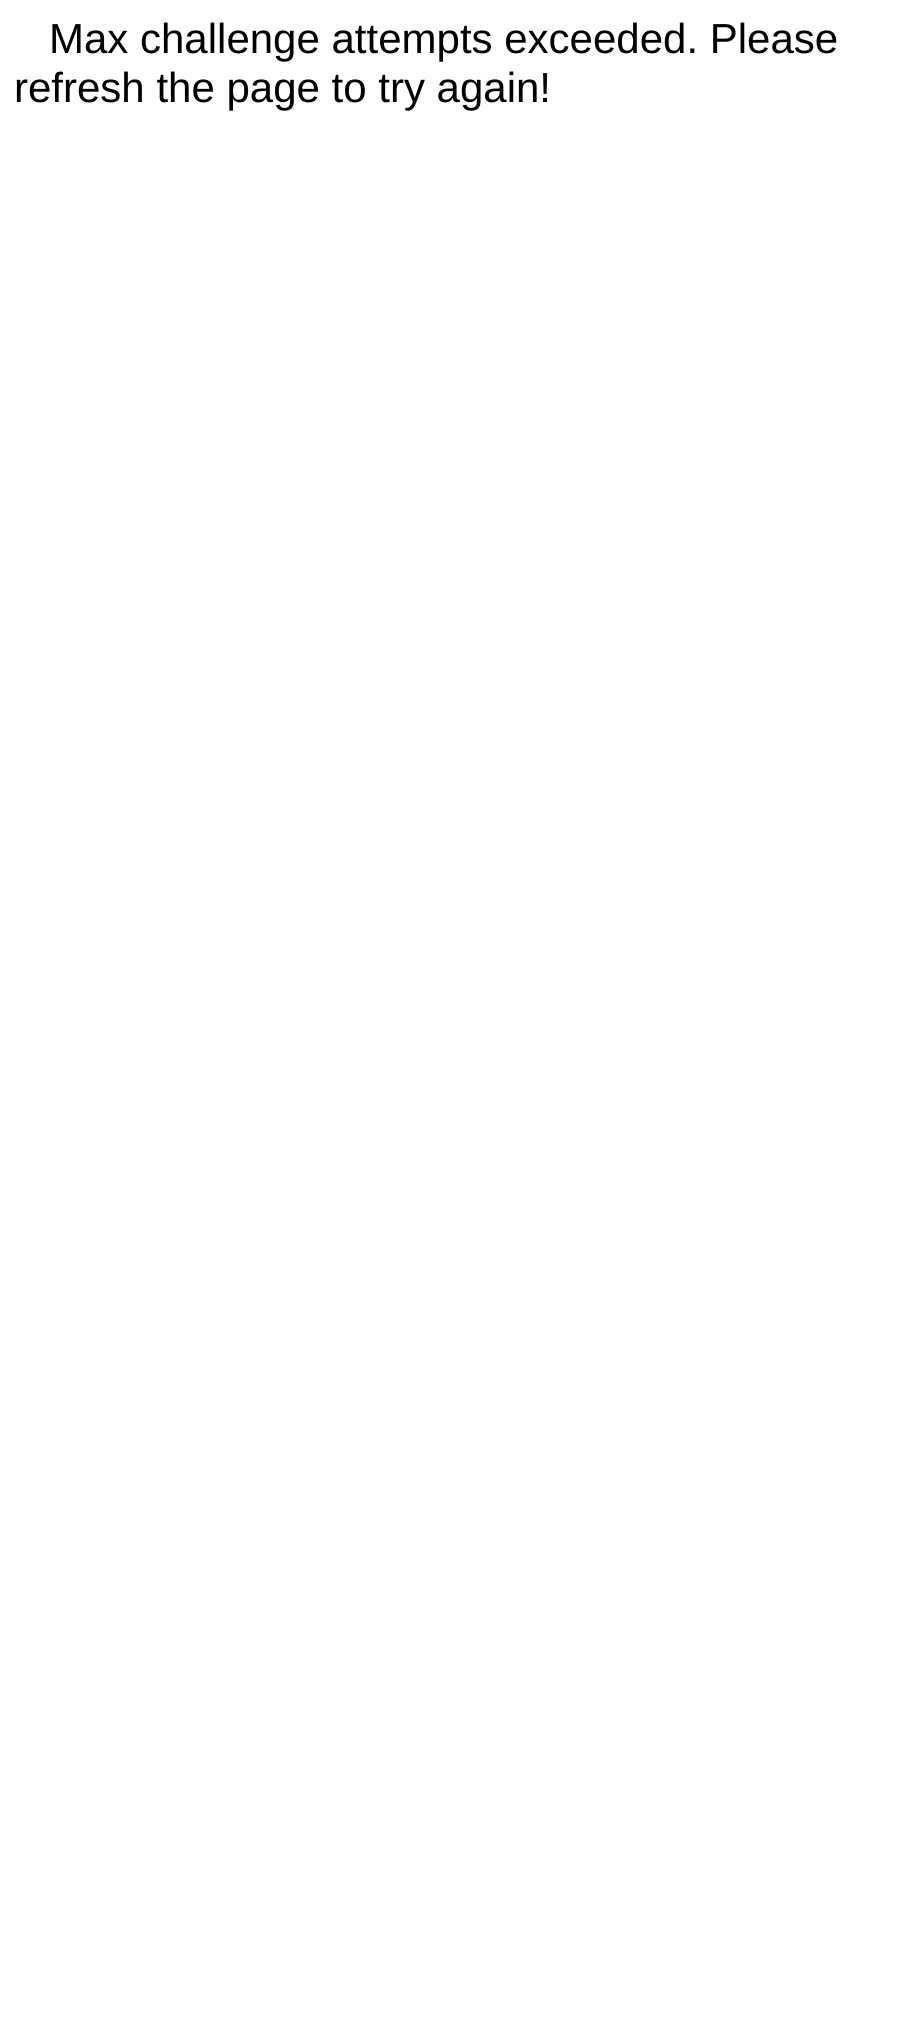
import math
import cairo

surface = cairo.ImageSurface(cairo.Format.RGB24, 919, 2035)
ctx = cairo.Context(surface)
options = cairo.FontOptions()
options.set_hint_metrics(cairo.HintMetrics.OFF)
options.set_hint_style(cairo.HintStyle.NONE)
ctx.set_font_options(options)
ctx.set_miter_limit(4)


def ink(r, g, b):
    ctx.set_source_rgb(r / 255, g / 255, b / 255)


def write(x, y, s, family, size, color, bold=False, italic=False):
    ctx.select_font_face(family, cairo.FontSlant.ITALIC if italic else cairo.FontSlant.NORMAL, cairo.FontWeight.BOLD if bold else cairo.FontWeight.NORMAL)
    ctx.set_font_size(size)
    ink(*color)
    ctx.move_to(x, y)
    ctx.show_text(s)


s1 = dict(family="Liberation Sans", size=42, color=(0, 0, 0))

ink(255, 255, 255)
ctx.paint()
write(49, 53, "Max challenge attempts exceeded. Please", **s1)
write(14, 102, "refresh the page to try again!", **s1)
surface.write_to_png("screenshot.png")
